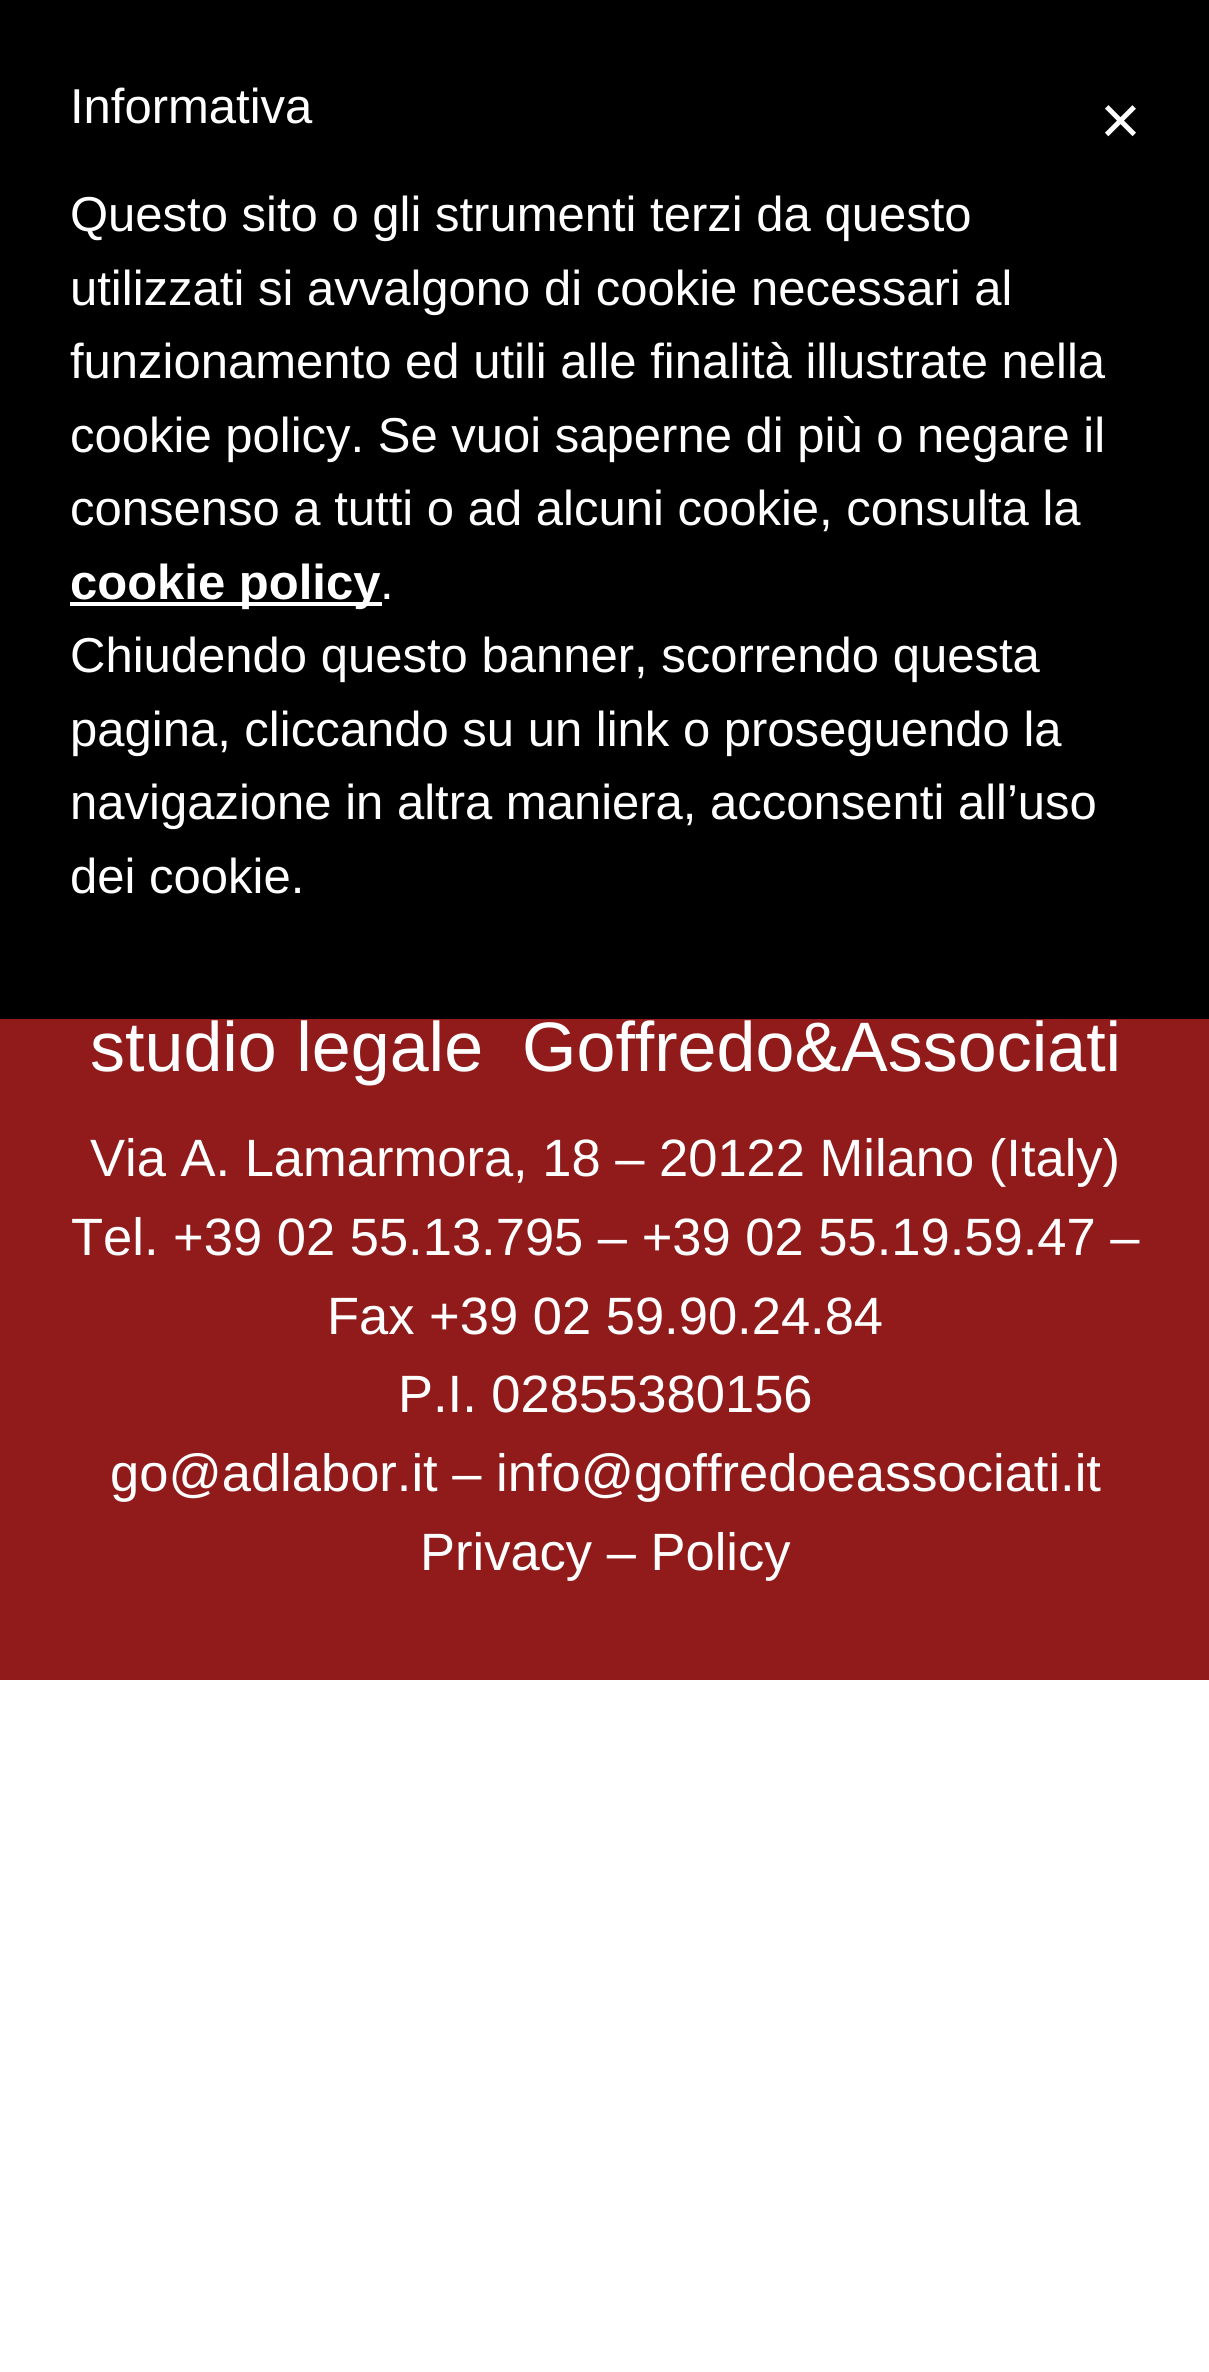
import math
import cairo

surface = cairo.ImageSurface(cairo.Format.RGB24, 1209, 2372)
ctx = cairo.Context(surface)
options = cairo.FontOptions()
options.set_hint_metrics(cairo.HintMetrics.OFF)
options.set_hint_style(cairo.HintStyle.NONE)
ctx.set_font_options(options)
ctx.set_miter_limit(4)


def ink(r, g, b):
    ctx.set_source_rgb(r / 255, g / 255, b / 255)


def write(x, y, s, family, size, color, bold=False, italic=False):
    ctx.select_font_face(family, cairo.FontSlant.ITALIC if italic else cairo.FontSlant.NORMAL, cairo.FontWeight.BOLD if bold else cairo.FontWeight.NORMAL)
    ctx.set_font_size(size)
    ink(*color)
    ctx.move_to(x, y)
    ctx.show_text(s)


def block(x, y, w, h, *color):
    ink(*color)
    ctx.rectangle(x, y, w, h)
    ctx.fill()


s1 = dict(family="Liberation Sans", size=49, color=(255, 255, 255))
s2 = dict(family="Liberation Sans", size=49, color=(255, 255, 255), bold=True)
s3 = dict(family="Liberation Sans", size=70, color=(255, 255, 255))
s4 = dict(family="Liberation Sans", size=52.5, color=(255, 255, 255))

ink(255, 255, 255)
ctx.paint()
block(0, 0, 1209, 1019, 0, 0, 0)
write(70, 123, "Informativa", **s1)
write(70, 231, "Questo sito o gli strumenti terzi da questo", **s1)
write(70, 305, "utilizzati si avvalgono di cookie necessari al", **s1)
write(70, 378, "funzionamento ed utili alle finalità illustrate nella", **s1)
write(70, 452, "cookie policy. Se vuoi saperne di più o negare il", **s1)
write(70, 525, "consenso a tutti o ad alcuni cookie, consulta la", **s1)
block(70, 602, 312, 4, 255, 255, 255)
write(70, 599, "cookie policy", **s2)
write(380, 599, ".", **s1)
write(70, 672, "Chiudendo questo banner, scorrendo questa", **s1)
write(70, 746, "pagina, cliccando su un link o proseguendo la", **s1)
write(70, 819, "navigazione in altra maniera, acconsenti all’uso", **s1)
write(70, 893, "dei cookie.", **s1)
write(1100, 144, "×", **s3)
block(0, 1019, 1209, 661, 145, 27, 27)
write(90, 1071, "studio legale", **s3)
write(522, 1071, "Goffredo&Associati", **s3)
write(90, 1176, "Via A. Lamarmora, 18 – 20122 Milano (Italy)", **s4)
write(71, 1255, "Tel. +39 02 55.13.795 – +39 02 55.19.59.47 –", **s4)
write(327, 1334, "Fax +39 02 59.90.24.84", **s4)
write(398, 1412, "P.I. 02855380156", **s4)
write(110, 1491, "go@adlabor.it – info@goffredoeassociati.it", **s4)
write(420, 1570, "Privacy – Policy", **s4)
surface.write_to_png("screenshot.png")
